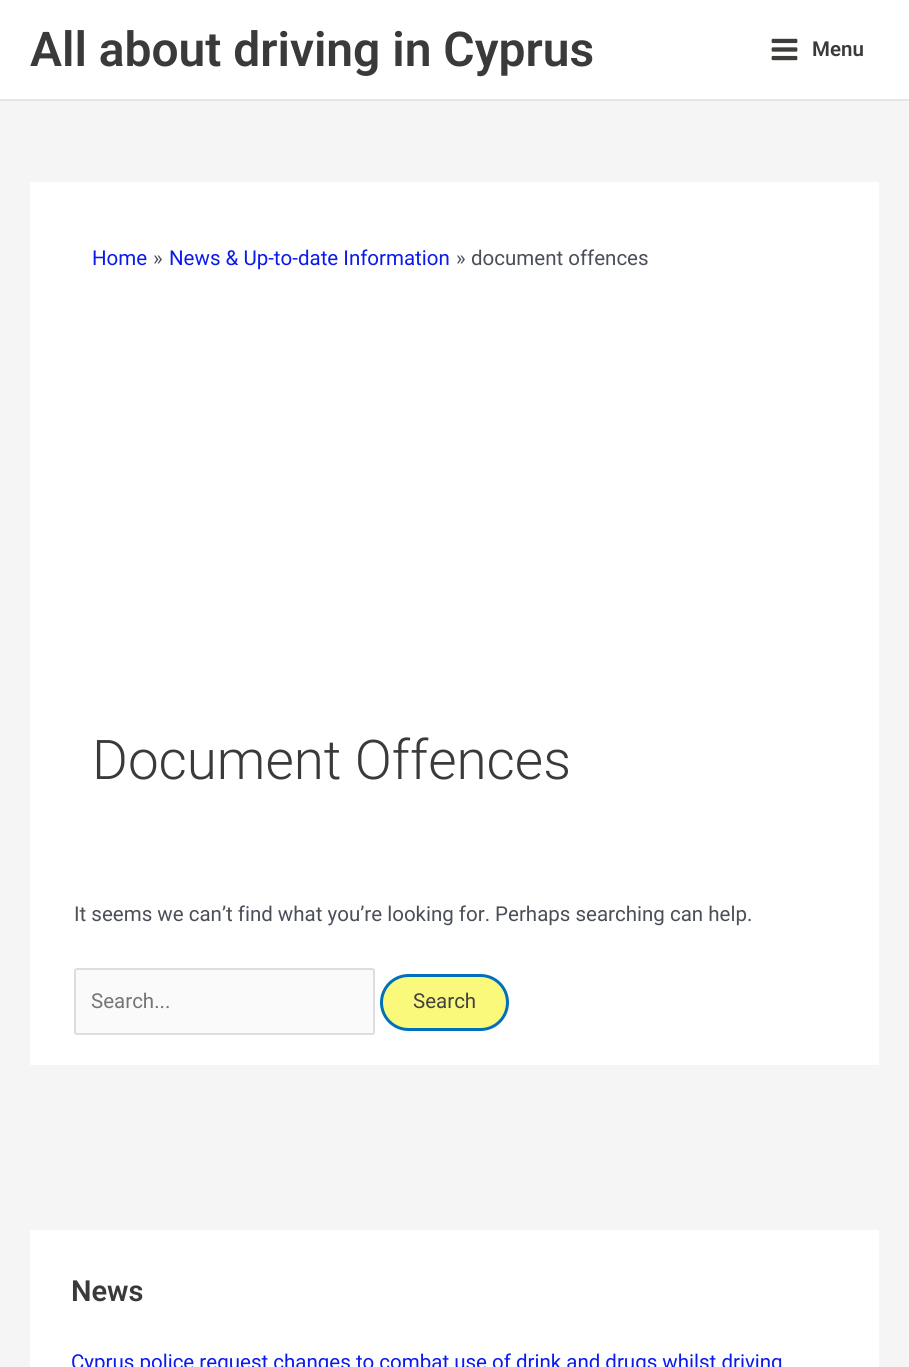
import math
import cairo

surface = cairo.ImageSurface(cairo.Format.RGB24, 909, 1367)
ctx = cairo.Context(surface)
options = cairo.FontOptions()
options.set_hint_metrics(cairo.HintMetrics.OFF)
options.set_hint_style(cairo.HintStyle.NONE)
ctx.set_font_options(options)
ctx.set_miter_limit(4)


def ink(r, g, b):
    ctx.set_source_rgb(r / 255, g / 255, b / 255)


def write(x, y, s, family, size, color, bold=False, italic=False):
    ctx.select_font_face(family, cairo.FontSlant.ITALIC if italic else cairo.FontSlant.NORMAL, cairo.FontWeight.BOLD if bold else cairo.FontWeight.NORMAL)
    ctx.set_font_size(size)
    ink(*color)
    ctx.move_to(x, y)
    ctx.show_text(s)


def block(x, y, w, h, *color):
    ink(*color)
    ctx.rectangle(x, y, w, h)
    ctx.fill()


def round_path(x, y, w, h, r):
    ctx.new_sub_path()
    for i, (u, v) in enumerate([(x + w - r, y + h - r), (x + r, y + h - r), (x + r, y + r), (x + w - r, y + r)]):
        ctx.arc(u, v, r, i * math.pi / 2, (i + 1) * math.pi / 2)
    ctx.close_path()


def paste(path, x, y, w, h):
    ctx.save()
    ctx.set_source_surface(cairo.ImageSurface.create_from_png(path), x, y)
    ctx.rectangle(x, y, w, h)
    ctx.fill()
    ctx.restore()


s1 = dict(family="Roboto SemiBold", size=47.9, color=(58, 58, 58))
s2 = dict(family="Roboto SemiBold", size=20.5, color=(58, 58, 58))
s3 = dict(family="Roboto", size=20.5, color=(11, 26, 235))
s4 = dict(family="Roboto", size=20.5, color=(75, 79, 88))
s5 = dict(family="Roboto Light", size=54.75, color=(58, 58, 58))
s6 = dict(family="Roboto", size=20.5, color=(117, 117, 117))
s7 = dict(family="Roboto", size=20.5, color=(66, 66, 66))
s8 = dict(family="Roboto SemiBold", size=29, color=(58, 58, 58))

ink(245, 245, 245)
ctx.paint()
block(0, 0, 909, 99, 255, 255, 255)
block(0, 99, 909, 2, 229, 229, 229)
write(30, 66, "All about driving in Cyprus", **s1)
paste("pic1.png", 771, 38, 27, 23)
write(812, 56, "Menu", **s2)
block(30, 182, 849, 883, 255, 255, 255)
write(92, 265, "Home", **s3)
write(153, 265, "»", **s4)
write(169, 265, "News & Up-to-date Information", **s3)
write(456, 265, "»", **s4)
write(471, 265, "document offences", **s4)
write(92, 779, "Document Offences", **s5)
write(74, 921, "It seems we can’t find what you’re looking for. Perhaps searching can help.", **s4)
ink(250, 250, 250)
round_path(75, 969, 299, 65, 2)
ctx.fill_preserve()
ink(221, 221, 221)
ctx.stroke()
write(91, 1008, "Search...", **s6)
ink(251, 249, 124)
round_path(381.5, 975.5, 126, 54, 27)
ctx.fill_preserve()
ink(1, 112, 185)
ctx.set_line_width(3)
ctx.stroke()
write(413, 1008, "Search", **s7)
block(30, 1230, 849, 137, 255, 255, 255)
write(71, 1301, "News", **s8)
write(71, 1369, "Cyprus police request changes to combat use of drink and drugs whilst driving", **s3)
surface.write_to_png("screenshot.png")
